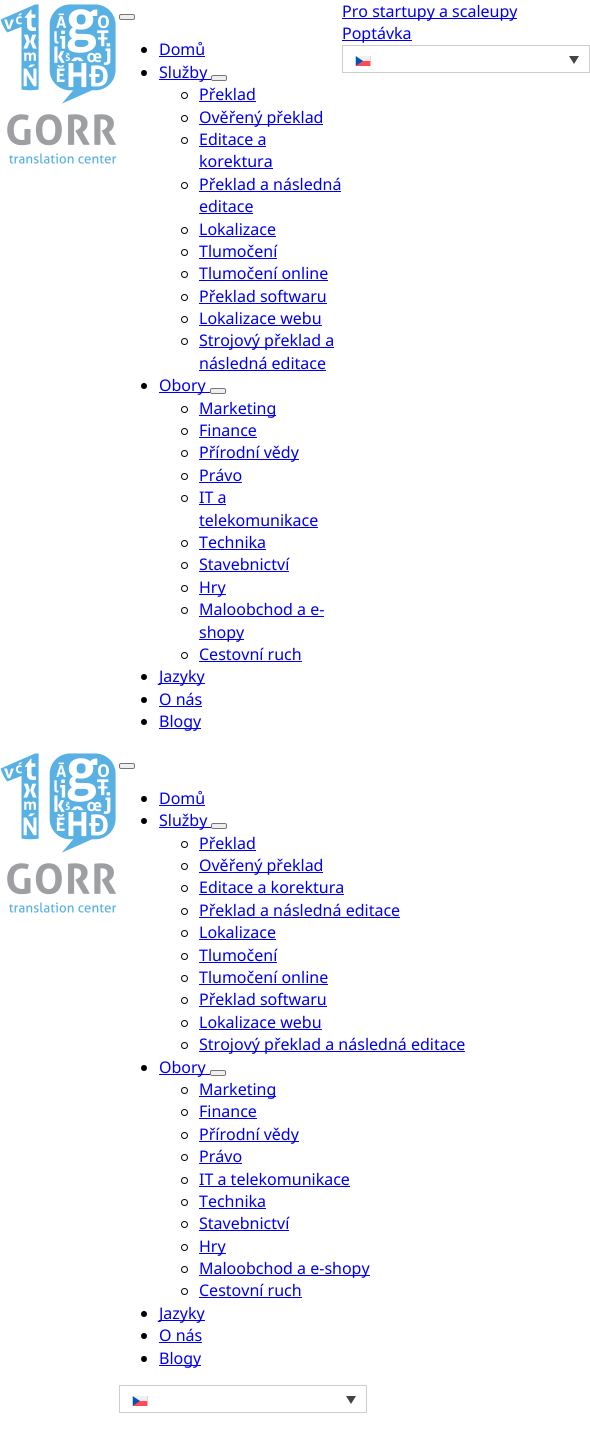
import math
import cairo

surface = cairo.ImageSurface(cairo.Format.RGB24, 590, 1444)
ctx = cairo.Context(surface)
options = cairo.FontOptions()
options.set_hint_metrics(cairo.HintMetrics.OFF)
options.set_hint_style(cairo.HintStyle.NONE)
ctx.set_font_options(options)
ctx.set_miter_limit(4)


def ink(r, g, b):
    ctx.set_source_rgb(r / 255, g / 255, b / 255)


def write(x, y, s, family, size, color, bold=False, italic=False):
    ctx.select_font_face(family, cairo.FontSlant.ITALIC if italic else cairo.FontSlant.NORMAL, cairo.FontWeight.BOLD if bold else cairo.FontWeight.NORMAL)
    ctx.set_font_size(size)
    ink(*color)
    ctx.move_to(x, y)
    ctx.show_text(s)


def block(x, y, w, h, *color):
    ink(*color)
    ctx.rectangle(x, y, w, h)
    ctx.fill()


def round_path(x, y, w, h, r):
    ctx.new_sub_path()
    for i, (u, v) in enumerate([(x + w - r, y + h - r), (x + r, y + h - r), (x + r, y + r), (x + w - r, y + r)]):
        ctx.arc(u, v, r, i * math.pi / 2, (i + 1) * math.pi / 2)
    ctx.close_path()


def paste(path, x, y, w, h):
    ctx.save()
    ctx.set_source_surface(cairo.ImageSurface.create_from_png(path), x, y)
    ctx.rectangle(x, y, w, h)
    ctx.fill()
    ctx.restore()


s1 = dict(family="Noto Sans", size=16, color=(0, 0, 238))

ink(255, 255, 255)
ctx.paint()
paste("pic1.png", 0, 4, 117, 160)
block(342, 18, 175, 1, 0, 0, 238)
write(342, 17, "Pro startupy a scaleupy", **s1)
block(342, 40, 70, 1, 0, 0, 238)
write(342, 39, "Poptávka", **s1)
ctx.rectangle(342.5, 45.5, 247, 27)
ink(205, 205, 205)
ctx.set_line_width(1)
ctx.stroke()
paste("pic2.png", 355, 56, 16, 10)
ink(68, 68, 68)
ctx.new_path()
ctx.move_to(569, 56)
ctx.line_to(579, 56)
ctx.line_to(574, 64)
ctx.close_path()
ctx.fill()
ink(239, 239, 239)
round_path(119.5, 14.5, 15, 5, 1.5)
ctx.fill_preserve()
ink(118, 118, 118)
ctx.stroke()
ink(0, 0, 0)
ctx.arc(144, 50, 3, 0, 2 * math.pi)
ctx.fill()
write(159, 55, "Domů", **s1)
block(159, 56, 46, 1, 0, 0, 238)
ink(0, 0, 0)
ctx.new_path()
ctx.arc(144, 73, 3, 0, 2 * math.pi)
ctx.fill()
block(159, 79, 52, 1, 0, 0, 238)
write(159, 78, "Služby", **s1)
ink(239, 239, 239)
round_path(211.5, 75.5, 15, 5, 1.5)
ctx.fill_preserve()
ink(118, 118, 118)
ctx.stroke()
ctx.arc(184.5, 95.5, 3, 0, 2 * math.pi)
ink(0, 0, 0)
ctx.stroke()
write(199, 100, "Překlad", **s1)
block(199, 101, 57, 1, 0, 0, 238)
ctx.new_path()
ctx.arc(184.5, 118.5, 3, 0, 2 * math.pi)
ink(0, 0, 0)
ctx.stroke()
block(199, 124, 124, 1, 0, 0, 238)
write(199, 123, "Ověřený překlad", **s1)
ctx.new_path()
ctx.arc(184.5, 140.5, 3, 0, 2 * math.pi)
ink(0, 0, 0)
ctx.stroke()
write(199, 145, "Editace a", **s1)
block(199, 146, 67, 1, 0, 0, 238)
write(199, 167, "korektura", **s1)
block(199, 168, 74, 1, 0, 0, 238)
ctx.new_path()
ctx.arc(184.5, 185.5, 3, 0, 2 * math.pi)
ink(0, 0, 0)
ctx.stroke()
write(199, 190, "Překlad a následná", **s1)
block(199, 191, 142, 1, 0, 0, 238)
write(199, 212, "editace", **s1)
block(199, 213, 54, 1, 0, 0, 238)
ctx.new_path()
ctx.arc(184.5, 230.5, 3, 0, 2 * math.pi)
ink(0, 0, 0)
ctx.stroke()
write(199, 235, "Lokalizace", **s1)
block(199, 236, 77, 1, 0, 0, 238)
ctx.new_path()
ctx.arc(184.5, 252.5, 3, 0, 2 * math.pi)
ink(0, 0, 0)
ctx.stroke()
write(199, 257, "Tlumočení", **s1)
block(199, 258, 78, 1, 0, 0, 238)
ctx.new_path()
ctx.arc(184.5, 274.5, 3, 0, 2 * math.pi)
ink(0, 0, 0)
ctx.stroke()
write(199, 279, "Tlumočení online", **s1)
block(199, 280, 129, 1, 0, 0, 238)
ctx.new_path()
ctx.arc(184.5, 297.5, 3, 0, 2 * math.pi)
ink(0, 0, 0)
ctx.stroke()
write(199, 302, "Překlad softwaru", **s1)
block(199, 303, 128, 1, 0, 0, 238)
ctx.new_path()
ctx.arc(184.5, 319.5, 3, 0, 2 * math.pi)
ink(0, 0, 0)
ctx.stroke()
write(199, 324, "Lokalizace webu", **s1)
block(199, 325, 123, 1, 0, 0, 238)
ctx.new_path()
ctx.arc(184.5, 341.5, 3, 0, 2 * math.pi)
ink(0, 0, 0)
ctx.stroke()
block(199, 347, 135, 1, 0, 0, 238)
write(199, 346, "Strojový překlad a", **s1)
write(199, 369, "následná editace", **s1)
block(199, 370, 127, 1, 0, 0, 238)
ink(0, 0, 0)
ctx.new_path()
ctx.arc(144, 386, 3, 0, 2 * math.pi)
ctx.fill()
block(159, 392, 51, 1, 0, 0, 238)
write(159, 391, "Obory", **s1)
ink(239, 239, 239)
round_path(210.5, 388.5, 15, 5, 1.5)
ctx.fill_preserve()
ink(118, 118, 118)
ctx.stroke()
ctx.arc(184.5, 409.5, 3, 0, 2 * math.pi)
ink(0, 0, 0)
ctx.stroke()
block(199, 415, 77, 1, 0, 0, 238)
write(199, 414, "Marketing", **s1)
ctx.new_path()
ctx.arc(184.5, 431.5, 3, 0, 2 * math.pi)
ink(0, 0, 0)
ctx.stroke()
write(199, 436, "Finance", **s1)
block(199, 437, 58, 1, 0, 0, 238)
ctx.new_path()
ctx.arc(184.5, 453.5, 3, 0, 2 * math.pi)
ink(0, 0, 0)
ctx.stroke()
block(199, 459, 100, 1, 0, 0, 238)
write(199, 458, "Přírodní vědy", **s1)
ctx.new_path()
ctx.arc(184.5, 476.5, 3, 0, 2 * math.pi)
ink(0, 0, 0)
ctx.stroke()
write(199, 481, "Právo", **s1)
block(199, 482, 43, 1, 0, 0, 238)
ctx.new_path()
ctx.arc(184.5, 498.5, 3, 0, 2 * math.pi)
ink(0, 0, 0)
ctx.stroke()
write(199, 503, "IT a", **s1)
block(199, 504, 27, 1, 0, 0, 238)
write(199, 526, "telekomunikace", **s1)
block(199, 527, 119, 1, 0, 0, 238)
ctx.new_path()
ctx.arc(184.5, 543.5, 3, 0, 2 * math.pi)
ink(0, 0, 0)
ctx.stroke()
write(199, 548, "Technika", **s1)
block(199, 549, 67, 1, 0, 0, 238)
ctx.new_path()
ctx.arc(184.5, 565.5, 3, 0, 2 * math.pi)
ink(0, 0, 0)
ctx.stroke()
write(199, 570, "Stavebnictví", **s1)
block(199, 571, 90, 1, 0, 0, 238)
ctx.new_path()
ctx.arc(184.5, 588.5, 3, 0, 2 * math.pi)
ink(0, 0, 0)
ctx.stroke()
block(199, 594, 27, 1, 0, 0, 238)
write(199, 593, "Hry", **s1)
ctx.new_path()
ctx.arc(184.5, 610.5, 3, 0, 2 * math.pi)
ink(0, 0, 0)
ctx.stroke()
write(199, 615, "Maloobchod a e-", **s1)
block(199, 616, 125, 1, 0, 0, 238)
block(199, 639, 45, 1, 0, 0, 238)
write(199, 638, "shopy", **s1)
ctx.new_path()
ctx.arc(184.5, 655.5, 3, 0, 2 * math.pi)
ink(0, 0, 0)
ctx.stroke()
write(199, 660, "Cestovní ruch", **s1)
block(199, 661, 103, 1, 0, 0, 238)
ink(0, 0, 0)
ctx.new_path()
ctx.arc(144, 677, 3, 0, 2 * math.pi)
ctx.fill()
block(159, 683, 46, 1, 0, 0, 238)
write(159, 682, "Jazyky", **s1)
ink(0, 0, 0)
ctx.new_path()
ctx.arc(144, 700, 3, 0, 2 * math.pi)
ctx.fill()
write(159, 705, "O nás", **s1)
block(159, 706, 43, 1, 0, 0, 238)
ink(0, 0, 0)
ctx.new_path()
ctx.arc(144, 722, 3, 0, 2 * math.pi)
ctx.fill()
block(159, 728, 42, 1, 0, 0, 238)
write(159, 727, "Blogy", **s1)
paste("pic1.png", 0, 753, 117, 160)
ink(239, 239, 239)
round_path(119.5, 763.5, 15, 5, 1.5)
ctx.fill_preserve()
ink(118, 118, 118)
ctx.stroke()
ink(0, 0, 0)
ctx.arc(144, 799, 3, 0, 2 * math.pi)
ctx.fill()
write(159, 804, "Domů", **s1)
block(159, 805, 46, 1, 0, 0, 238)
ink(0, 0, 0)
ctx.new_path()
ctx.arc(144, 821, 3, 0, 2 * math.pi)
ctx.fill()
block(159, 827, 52, 1, 0, 0, 238)
write(159, 826, "Služby", **s1)
ink(239, 239, 239)
round_path(211.5, 823.5, 15, 5, 1.5)
ctx.fill_preserve()
ink(118, 118, 118)
ctx.stroke()
ctx.arc(184.5, 844.5, 3, 0, 2 * math.pi)
ink(0, 0, 0)
ctx.stroke()
write(199, 849, "Překlad", **s1)
block(199, 850, 57, 1, 0, 0, 238)
ctx.new_path()
ctx.arc(184.5, 866.5, 3, 0, 2 * math.pi)
ink(0, 0, 0)
ctx.stroke()
block(199, 872, 124, 1, 0, 0, 238)
write(199, 871, "Ověřený překlad", **s1)
ctx.new_path()
ctx.arc(184.5, 888.5, 3, 0, 2 * math.pi)
ink(0, 0, 0)
ctx.stroke()
write(199, 893, "Editace a korektura", **s1)
block(199, 894, 145, 1, 0, 0, 238)
ctx.new_path()
ctx.arc(184.5, 911.5, 3, 0, 2 * math.pi)
ink(0, 0, 0)
ctx.stroke()
write(199, 916, "Překlad a následná editace", **s1)
block(199, 917, 201, 1, 0, 0, 238)
ctx.new_path()
ctx.arc(184.5, 933.5, 3, 0, 2 * math.pi)
ink(0, 0, 0)
ctx.stroke()
write(199, 938, "Lokalizace", **s1)
block(199, 939, 77, 1, 0, 0, 238)
ctx.new_path()
ctx.arc(184.5, 956.5, 3, 0, 2 * math.pi)
ink(0, 0, 0)
ctx.stroke()
write(199, 961, "Tlumočení", **s1)
block(199, 962, 78, 1, 0, 0, 238)
ctx.new_path()
ctx.arc(184.5, 978.5, 3, 0, 2 * math.pi)
ink(0, 0, 0)
ctx.stroke()
write(199, 983, "Tlumočení online", **s1)
block(199, 984, 129, 1, 0, 0, 238)
ctx.new_path()
ctx.arc(184.5, 1000.5, 3, 0, 2 * math.pi)
ink(0, 0, 0)
ctx.stroke()
write(199, 1005, "Překlad softwaru", **s1)
block(199, 1006, 128, 1, 0, 0, 238)
ctx.new_path()
ctx.arc(184.5, 1023.5, 3, 0, 2 * math.pi)
ink(0, 0, 0)
ctx.stroke()
write(199, 1028, "Lokalizace webu", **s1)
block(199, 1029, 123, 1, 0, 0, 238)
ctx.new_path()
ctx.arc(184.5, 1045.5, 3, 0, 2 * math.pi)
ink(0, 0, 0)
ctx.stroke()
block(199, 1051, 266, 1, 0, 0, 238)
write(199, 1050, "Strojový překlad a následná editace", **s1)
ink(0, 0, 0)
ctx.new_path()
ctx.arc(144, 1068, 3, 0, 2 * math.pi)
ctx.fill()
block(159, 1074, 51, 1, 0, 0, 238)
write(159, 1073, "Obory", **s1)
ink(239, 239, 239)
round_path(210.5, 1070.5, 15, 5, 1.5)
ctx.fill_preserve()
ink(118, 118, 118)
ctx.stroke()
ctx.arc(184.5, 1090.5, 3, 0, 2 * math.pi)
ink(0, 0, 0)
ctx.stroke()
block(199, 1096, 77, 1, 0, 0, 238)
write(199, 1095, "Marketing", **s1)
ctx.new_path()
ctx.arc(184.5, 1112.5, 3, 0, 2 * math.pi)
ink(0, 0, 0)
ctx.stroke()
write(199, 1117, "Finance", **s1)
block(199, 1118, 58, 1, 0, 0, 238)
ctx.new_path()
ctx.arc(184.5, 1135.5, 3, 0, 2 * math.pi)
ink(0, 0, 0)
ctx.stroke()
block(199, 1141, 100, 1, 0, 0, 238)
write(199, 1140, "Přírodní vědy", **s1)
ctx.new_path()
ctx.arc(184.5, 1157.5, 3, 0, 2 * math.pi)
ink(0, 0, 0)
ctx.stroke()
write(199, 1162, "Právo", **s1)
block(199, 1163, 43, 1, 0, 0, 238)
ctx.new_path()
ctx.arc(184.5, 1180.5, 3, 0, 2 * math.pi)
ink(0, 0, 0)
ctx.stroke()
write(199, 1185, "IT a telekomunikace", **s1)
block(199, 1186, 151, 1, 0, 0, 238)
ctx.new_path()
ctx.arc(184.5, 1202.5, 3, 0, 2 * math.pi)
ink(0, 0, 0)
ctx.stroke()
write(199, 1207, "Technika", **s1)
block(199, 1208, 67, 1, 0, 0, 238)
ctx.new_path()
ctx.arc(184.5, 1224.5, 3, 0, 2 * math.pi)
ink(0, 0, 0)
ctx.stroke()
write(199, 1229, "Stavebnictví", **s1)
block(199, 1230, 90, 1, 0, 0, 238)
ctx.new_path()
ctx.arc(184.5, 1247.5, 3, 0, 2 * math.pi)
ink(0, 0, 0)
ctx.stroke()
block(199, 1253, 27, 1, 0, 0, 238)
write(199, 1252, "Hry", **s1)
ctx.new_path()
ctx.arc(184.5, 1269.5, 3, 0, 2 * math.pi)
ink(0, 0, 0)
ctx.stroke()
block(199, 1275, 171, 1, 0, 0, 238)
write(199, 1274, "Maloobchod a e-shopy", **s1)
ctx.new_path()
ctx.arc(184.5, 1291.5, 3, 0, 2 * math.pi)
ink(0, 0, 0)
ctx.stroke()
write(199, 1296, "Cestovní ruch", **s1)
block(199, 1297, 103, 1, 0, 0, 238)
ink(0, 0, 0)
ctx.new_path()
ctx.arc(144, 1314, 3, 0, 2 * math.pi)
ctx.fill()
block(159, 1320, 46, 1, 0, 0, 238)
write(159, 1319, "Jazyky", **s1)
ink(0, 0, 0)
ctx.new_path()
ctx.arc(144, 1336, 3, 0, 2 * math.pi)
ctx.fill()
write(159, 1341, "O nás", **s1)
block(159, 1342, 43, 1, 0, 0, 238)
ink(0, 0, 0)
ctx.new_path()
ctx.arc(144, 1359, 3, 0, 2 * math.pi)
ctx.fill()
block(159, 1365, 42, 1, 0, 0, 238)
write(159, 1364, "Blogy", **s1)
ctx.rectangle(119.5, 1385.5, 247, 27)
ink(205, 205, 205)
ctx.stroke()
paste("pic2.png", 132, 1396, 16, 10)
ink(68, 68, 68)
ctx.new_path()
ctx.move_to(346, 1396)
ctx.line_to(356, 1396)
ctx.line_to(351, 1404)
ctx.close_path()
ctx.fill()
surface.write_to_png("screenshot.png")
